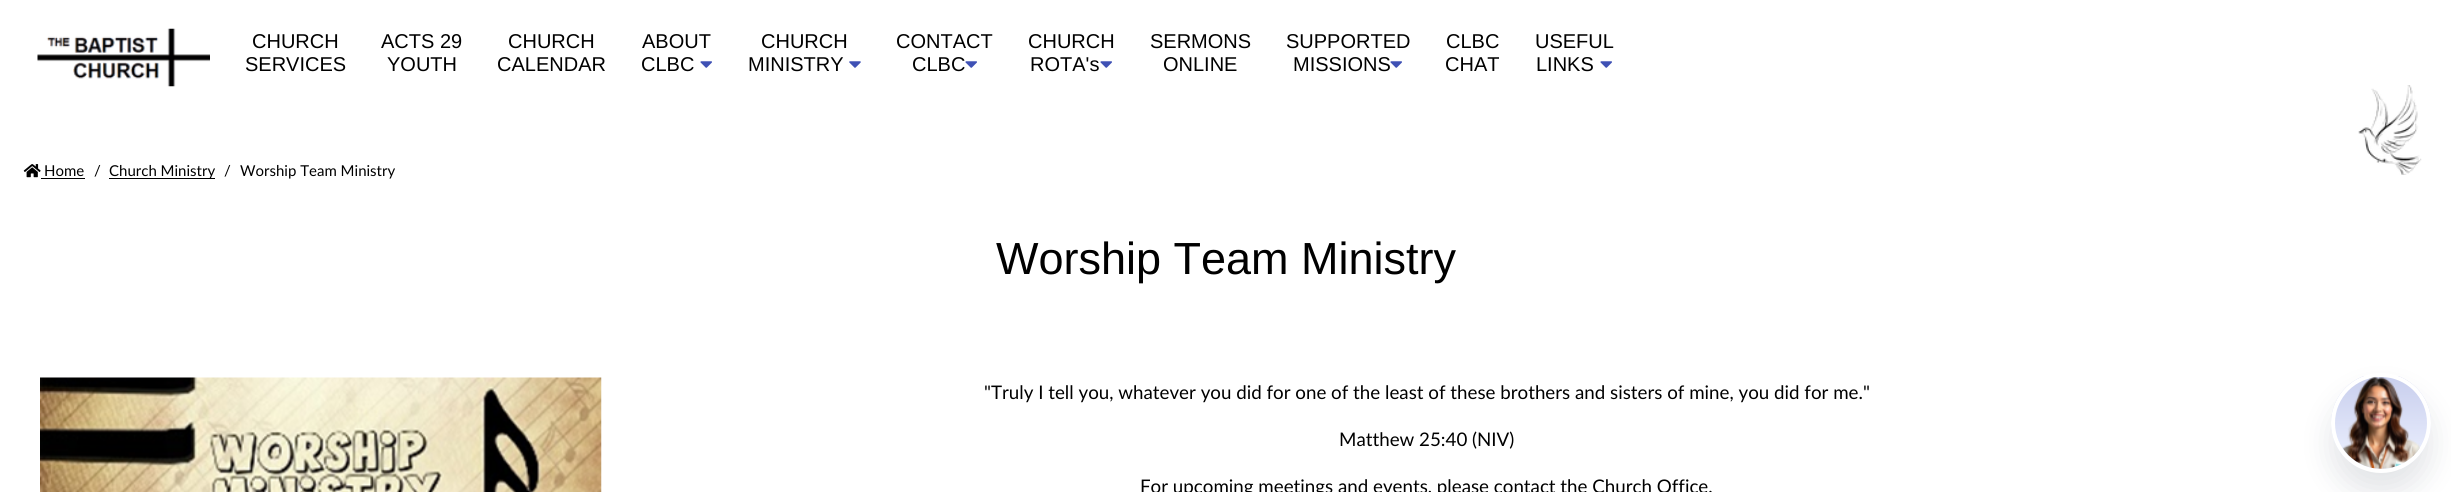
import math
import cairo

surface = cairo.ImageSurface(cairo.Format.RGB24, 2451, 492)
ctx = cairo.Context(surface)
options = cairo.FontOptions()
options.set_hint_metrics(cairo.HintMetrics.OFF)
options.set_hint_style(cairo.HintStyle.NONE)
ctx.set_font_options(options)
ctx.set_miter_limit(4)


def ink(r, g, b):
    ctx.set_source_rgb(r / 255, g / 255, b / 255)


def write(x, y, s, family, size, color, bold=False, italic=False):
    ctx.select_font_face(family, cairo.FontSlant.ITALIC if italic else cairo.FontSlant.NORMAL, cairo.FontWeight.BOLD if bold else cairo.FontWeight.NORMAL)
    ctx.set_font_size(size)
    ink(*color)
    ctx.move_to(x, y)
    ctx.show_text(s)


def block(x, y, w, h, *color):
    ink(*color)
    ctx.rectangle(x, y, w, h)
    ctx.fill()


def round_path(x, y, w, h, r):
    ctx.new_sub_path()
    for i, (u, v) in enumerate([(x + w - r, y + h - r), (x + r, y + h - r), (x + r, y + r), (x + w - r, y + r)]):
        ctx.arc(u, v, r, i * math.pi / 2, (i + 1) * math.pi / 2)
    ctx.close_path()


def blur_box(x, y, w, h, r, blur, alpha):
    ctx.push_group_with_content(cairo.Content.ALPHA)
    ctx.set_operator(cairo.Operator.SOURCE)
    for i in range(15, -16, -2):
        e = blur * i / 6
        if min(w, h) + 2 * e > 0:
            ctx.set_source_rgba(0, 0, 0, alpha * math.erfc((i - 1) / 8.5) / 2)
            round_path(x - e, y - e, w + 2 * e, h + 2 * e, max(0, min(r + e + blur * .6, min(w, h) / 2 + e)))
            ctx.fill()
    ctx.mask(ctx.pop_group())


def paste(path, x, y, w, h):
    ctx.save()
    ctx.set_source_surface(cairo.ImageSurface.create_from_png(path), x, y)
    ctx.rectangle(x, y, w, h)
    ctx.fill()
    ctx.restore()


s1 = dict(family="Liberation Sans", size=20, color=(0, 0, 0))
s2 = dict(family="Lato", size=15, color=(0, 0, 0))
s3 = dict(family="Liberation Sans", size=45, color=(0, 0, 0))
s4 = dict(family="Lato", size=18.75, color=(0, 0, 0))

ink(255, 255, 255)
ctx.paint()
paste("pic1.png", 37, 28, 173, 59)
write(252, 48, "CHURCH", **s1)
write(245, 71, "SERVICES", **s1)
write(381, 48, "ACTS 29", **s1)
write(387, 71, "YOUTH", **s1)
write(508, 48, "CHURCH", **s1)
write(497, 71, "CALENDAR", **s1)
write(642, 48, "ABOUT", **s1)
write(641, 71, "CLBC", **s1)
paste("pic2.png", 700, 61, 12, 7)
write(761, 48, "CHURCH", **s1)
write(748, 71, "MINISTRY", **s1)
paste("pic3.png", 849, 61, 12, 7)
write(896, 48, "CONTACT", **s1)
write(912, 71, "CLBC", **s1)
paste("pic2.png", 965, 61, 12, 7)
write(1028, 48, "CHURCH", **s1)
write(1030, 71, "ROTA's", **s1)
paste("pic2.png", 1100, 61, 12, 7)
write(1150, 48, "SERMONS", **s1)
write(1163, 71, "ONLINE", **s1)
write(1286, 48, "SUPPORTED", **s1)
write(1293, 71, "MISSIONS", **s1)
paste("pic2.png", 1390, 61, 12, 7)
write(1446, 48, "CLBC", **s1)
write(1445, 71, "CHAT", **s1)
write(1535, 48, "USEFUL", **s1)
write(1536, 71, "LINKS", **s1)
paste("pic2.png", 1600, 61, 12, 7)
paste("pic4.png", 23, 164, 18, 14)
write(44, 176, "Home", **s2)
block(41, 178, 44, 1, 0, 0, 0)
write(94, 176, "/", **s2)
block(109, 178, 106, 1, 0, 0, 0)
write(109, 176, "Church Ministry", **s2)
write(224, 176, "/", **s2)
write(240, 176, "Worship Team Ministry", **s2)
paste("pic5.png", 2358, 85, 64, 90)
write(996, 274, "Worship Team Ministry", **s3)
paste("pic6.png", 40, 377, 562, 115)
write(984, 399, "\"Truly I tell you, whatever you did for one of the least of these brothers and sisters of mine, you did for me.\"", **s4)
write(1339, 446, "Matthew 25:40 (NIV)", **s4)
write(1140, 493, "For upcoming meetings and events, please contact the Church Office.", **s4)
ink(84, 95, 111)
blur_box(2331, 393, 100, 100, 50, 15, 0.16)
ctx.save()
round_path(2331, 373, 100, 100, 50)
ctx.clip()
gradient = cairo.LinearGradient(2381, 376, 2381, 469)
gradient.add_color_stop_rgba(0, 0.784, 0.808, 0.929, 1)
gradient.add_color_stop_rgba(1, 0.933, 0.949, 1, 1)
ctx.set_source(gradient)
ctx.rectangle(2331, 376, 100, 93)
ctx.fill()
ctx.restore()
ctx.arc(2381, 423, 48, 0, 2 * math.pi)
ink(255, 255, 255)
ctx.set_line_width(4)
ctx.stroke()
paste("pic7.png", 2342, 376, 78, 93)
surface.write_to_png("screenshot.png")
